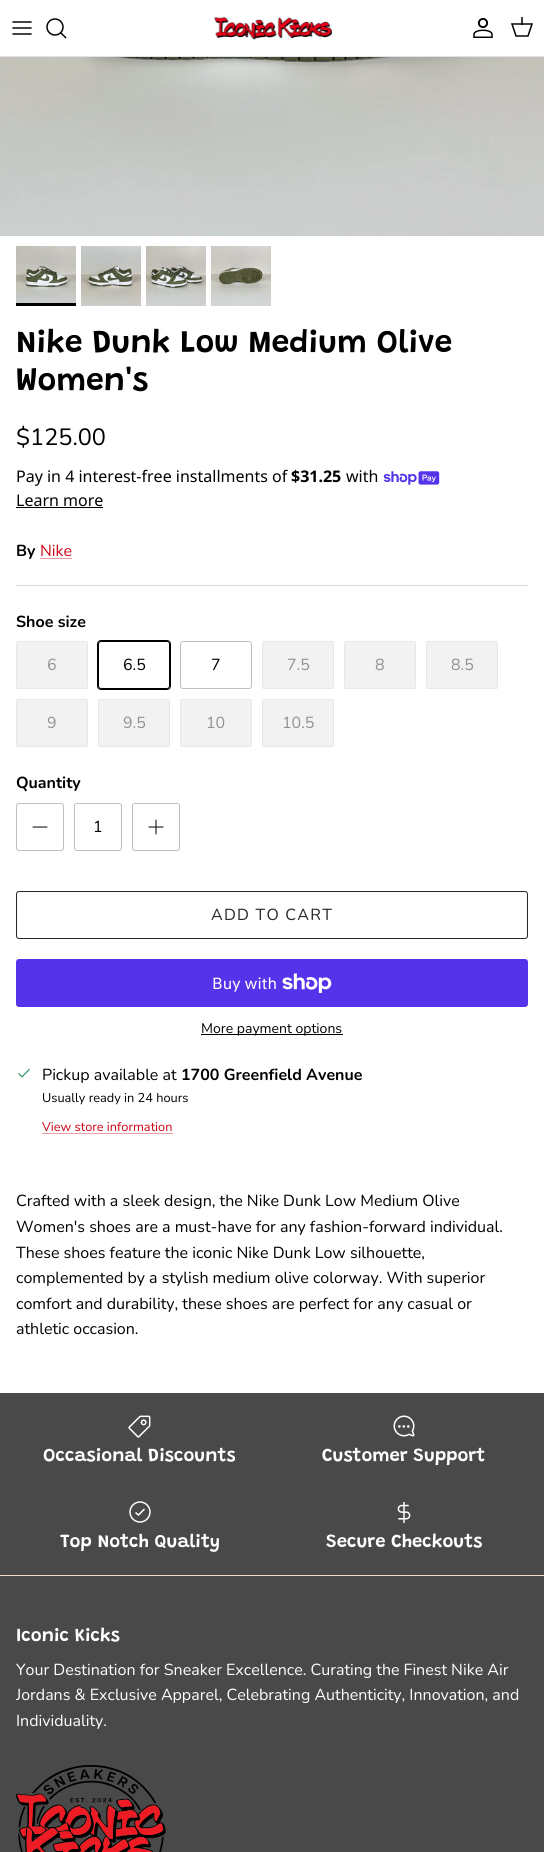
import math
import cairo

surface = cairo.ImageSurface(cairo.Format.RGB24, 544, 1852)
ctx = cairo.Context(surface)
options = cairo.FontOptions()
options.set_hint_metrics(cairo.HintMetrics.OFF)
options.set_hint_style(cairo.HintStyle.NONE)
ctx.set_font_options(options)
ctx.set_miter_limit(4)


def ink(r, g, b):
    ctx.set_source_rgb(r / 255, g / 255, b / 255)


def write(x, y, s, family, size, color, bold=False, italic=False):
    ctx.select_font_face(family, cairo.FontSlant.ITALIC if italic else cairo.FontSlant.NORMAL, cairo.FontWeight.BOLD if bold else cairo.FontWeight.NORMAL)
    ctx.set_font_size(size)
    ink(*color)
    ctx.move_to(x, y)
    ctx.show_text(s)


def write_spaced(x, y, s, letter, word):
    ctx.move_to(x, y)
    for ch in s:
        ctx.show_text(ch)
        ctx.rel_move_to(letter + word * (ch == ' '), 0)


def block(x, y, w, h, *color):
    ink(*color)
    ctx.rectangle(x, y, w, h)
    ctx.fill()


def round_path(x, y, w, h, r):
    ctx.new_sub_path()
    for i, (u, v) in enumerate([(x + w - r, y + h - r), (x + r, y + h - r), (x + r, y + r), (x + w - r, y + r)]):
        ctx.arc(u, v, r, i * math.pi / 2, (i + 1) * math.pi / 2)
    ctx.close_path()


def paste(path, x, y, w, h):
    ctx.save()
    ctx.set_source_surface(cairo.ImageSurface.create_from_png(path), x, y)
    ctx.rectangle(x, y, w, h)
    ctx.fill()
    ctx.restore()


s1 = dict(family="Grandstander SemiBold", size=32, color=(0, 0, 0))
s2 = dict(family="Nunito", size=23.5, color=(0, 0, 0))
s3 = dict(family="Noto Sans", size=16, color=(0, 0, 0))
s4 = dict(family="Noto Sans", size=16, color=(0, 0, 0), bold=True)
s5 = dict(family="Nunito", size=16, color=(0, 0, 0), bold=True)
s6 = dict(family="Nunito", size=16, color=(206, 4, 20))
s7 = dict(family="Nunito", size=16, color=(145, 145, 145))
s8 = dict(family="Nunito", size=16, color=(0, 0, 0))
s9 = dict(family="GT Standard", size=16, color=(255, 255, 255))
s10 = dict(family="Nunito", size=14, color=(0, 0, 0))
s11 = dict(family="Nunito", size=12.75, color=(0, 0, 0))
s12 = dict(family="Nunito", size=12.75, color=(206, 4, 20))
s13 = dict(family="Grandstander SemiBold", size=18.5, color=(255, 255, 255))
s14 = dict(family="Nunito", size=16, color=(255, 255, 255))

ink(255, 255, 255)
ctx.paint()
block(0, 56, 544, 1, 223, 227, 232)
ctx.new_path()
ctx.move_to(13, 28)
ctx.line_to(31, 28)
ctx.move_to(13, 22)
ctx.line_to(31, 22)
ctx.move_to(13, 34)
ctx.line_to(31, 34)
ink(0, 0, 0)
ctx.set_line_width(1.5)
ctx.set_line_cap(cairo.LineCap.ROUND)
ctx.set_line_join(cairo.LineJoin.ROUND)
ctx.stroke()
ctx.arc(55, 27, 8, 0, 2 * math.pi)
ctx.set_line_cap(cairo.LineCap.BUTT)
ctx.set_line_join(cairo.LineJoin.MITER)
ctx.stroke()
ctx.new_path()
ctx.move_to(61, 33)
ctx.line_to(65.5, 37.5)
ctx.set_line_cap(cairo.LineCap.SQUARE)
ctx.stroke()
paste("pic1.png", 214, 17, 118, 23)
paste("pic2.png", 473, 18, 20, 20)
ctx.new_path()
ctx.move_to(512, 24)
ctx.line_to(532, 24)
ctx.line_to(528, 36)
ctx.line_to(516, 36)
ctx.close_path()
ctx.set_line_cap(cairo.LineCap.BUTT)
ctx.stroke()
ctx.set_source_rgba(0, 0, 0, 0.75)
ctx.rectangle(521, 17, 2, 8)
ctx.fill()
paste("pic3.png", 0, 57, 544, 179)
paste("pic4.png", 16, 246, 60, 57)
block(16, 303, 60, 3, 0, 0, 0)
paste("pic5.png", 81, 246, 60, 60)
paste("pic6.png", 146, 246, 60, 60)
paste("pic7.png", 211, 246, 60, 60)
write(16, 352, "Nike Dunk Low Medium Olive", **s1)
write(16, 390, "Women's", **s1)
write(16, 445, "$125.00", **s2)
write(16, 482, "Pay in 4 interest-free installments of", **s3)
write(291, 482, "$31.25", **s4)
write(346, 482, "with", **s3)
paste("pic8.png", 383, 471, 57, 14)
write(16, 506, "Learn more", **s3)
block(16, 507, 87, 1, 0, 0, 0)
write(16, 556, "By", **s5)
write(40, 556, "Nike", **s6)
block(40, 558, 32, 1, 235, 155, 161)
block(16, 585, 512, 1, 219, 219, 219)
write(16, 627, "Shoe size", **s5)
ink(242, 242, 242)
round_path(16, 641, 72, 48, 3)
ctx.fill()
ctx.rectangle(16.5, 641.5, 71, 47)
ctx.set_source_rgba(0, 0, 0, 0.05)
ctx.set_line_width(1)
ctx.stroke()
write(47, 670, "6", **s7)
round_path(97.5, 640.5, 73, 49, 3.5)
ink(0, 0, 0)
ctx.stroke()
ink(255, 255, 255)
round_path(98.5, 641.5, 71, 47, 2.5)
ctx.fill_preserve()
ink(0, 0, 0)
ctx.stroke()
write(123, 670, "6.5", **s8)
round_path(180.5, 641.5, 71, 47, 2.5)
ink(191, 191, 191)
ctx.stroke()
write(211, 670, "7", **s8)
ink(242, 242, 242)
round_path(262, 641, 72, 48, 3)
ctx.fill()
ctx.rectangle(262.5, 641.5, 71, 47)
ctx.set_source_rgba(0, 0, 0, 0.05)
ctx.stroke()
write(287, 670, "7.5", **s7)
ink(242, 242, 242)
round_path(344, 641, 72, 48, 3)
ctx.fill()
ctx.rectangle(344.5, 641.5, 71, 47)
ctx.set_source_rgba(0, 0, 0, 0.05)
ctx.stroke()
write(375, 670, "8", **s7)
ink(242, 242, 242)
round_path(426, 641, 72, 48, 3)
ctx.fill()
ctx.rectangle(426.5, 641.5, 71, 47)
ctx.set_source_rgba(0, 0, 0, 0.05)
ctx.stroke()
write(451, 670, "8.5", **s7)
ink(242, 242, 242)
round_path(16, 699, 72, 48, 3)
ctx.fill()
ctx.rectangle(16.5, 699.5, 71, 47)
ctx.set_source_rgba(0, 0, 0, 0.05)
ctx.stroke()
write(47, 728, "9", **s7)
ink(242, 242, 242)
round_path(98, 699, 72, 48, 3)
ctx.fill()
ctx.rectangle(98.5, 699.5, 71, 47)
ctx.set_source_rgba(0, 0, 0, 0.05)
ctx.stroke()
write(123, 728, "9.5", **s7)
ink(242, 242, 242)
round_path(180, 699, 72, 48, 3)
ctx.fill()
ctx.rectangle(180.5, 699.5, 71, 47)
ctx.set_source_rgba(0, 0, 0, 0.05)
ctx.stroke()
write(206, 728, "10", **s7)
ink(242, 242, 242)
round_path(262, 699, 72, 48, 3)
ctx.fill()
ctx.rectangle(262.5, 699.5, 71, 47)
ctx.set_source_rgba(0, 0, 0, 0.05)
ctx.stroke()
write(282, 728, "10.5", **s7)
write(16, 788, "Quantity", **s5)
round_path(16.5, 803.5, 47, 47, 2.5)
ink(191, 191, 191)
ctx.stroke()
ctx.new_path()
ctx.move_to(33, 827)
ctx.line_to(47, 827)
ink(0, 0, 0)
ctx.set_line_cap(cairo.LineCap.ROUND)
ctx.set_line_join(cairo.LineJoin.ROUND)
ctx.stroke()
round_path(74.5, 803.5, 47, 47, 2.5)
ink(191, 191, 191)
ctx.set_line_cap(cairo.LineCap.BUTT)
ctx.set_line_join(cairo.LineJoin.MITER)
ctx.stroke()
write(93, 832, "1", **s8)
round_path(132.5, 803.5, 47, 47, 2.5)
ink(191, 191, 191)
ctx.stroke()
ctx.new_path()
ctx.move_to(156, 820)
ctx.line_to(156, 834)
ctx.move_to(149, 827)
ctx.line_to(163, 827)
ink(0, 0, 0)
ctx.set_line_cap(cairo.LineCap.ROUND)
ctx.set_line_join(cairo.LineJoin.ROUND)
ctx.stroke()
round_path(16.5, 891.5, 511, 47, 2.5)
ink(38, 38, 38)
ctx.set_line_cap(cairo.LineCap.BUTT)
ctx.set_line_join(cairo.LineJoin.MITER)
ctx.stroke()
write_spaced(211, 920, "ADD TO CART", 1.25, 0)
ink(255, 255, 255)
ctx.new_path()
ctx.move_to(263.5, 914)
ctx.line_to(271, 921.5)
ctx.line_to(269.5, 922.5)
ctx.line_to(262.5, 915.5)
ctx.close_path()
ctx.fill()
ink(84, 51, 235)
round_path(16, 959, 512, 48, 3)
ctx.fill()
write(212, 989, "Buy with", **s9)
paste("pic9.png", 282, 973, 50, 20)
block(201, 1034, 142, 1, 0, 0, 0)
write(201, 1033, "More payment options", **s10)
paste("pic10.png", 18, 1068, 12, 10)
write(42, 1080, "Pickup available at", **s8)
write(181, 1080, "1700 Greenfield Avenue", **s5)
write(42, 1102, "Usually ready in 24 hours", **s11)
write(42, 1131, "View store information", **s12)
block(42, 1133, 131, 1, 235, 155, 161)
write(16, 1206, "Crafted with a sleek design, the Nike Dunk Low Medium Olive", **s8)
write(16, 1232, "Women's shoes are a must-have for any fashion-forward individual.", **s8)
write(16, 1258, "These shoes feature the iconic Nike Dunk Low silhouette,", **s8)
write(16, 1283, "complemented by a stylish medium olive colorway. With superior", **s8)
write(16, 1309, "comfort and durability, these shoes are perfect for any casual or", **s8)
write(16, 1334, "athletic occasion.", **s8)
block(0, 1393, 544, 182, 73, 73, 73)
paste("pic11.png", 128, 1415, 23, 23)
write(43, 1461, "Occasional Discounts", **s13)
paste("pic12.png", 393, 1415, 22, 22)
write(322, 1461, "Customer Support", **s13)
ctx.new_path()
ctx.arc(140, 1512, 10, 0, 2 * math.pi)
ctx.set_line_width(1.5)
ctx.stroke()
ctx.new_path()
ctx.move_to(144.5, 1509)
ctx.line_to(138.5, 1515)
ctx.line_to(135.5, 1512.5)
ctx.stroke()
write(60, 1547, "Top Notch Quality", **s13)
paste("pic13.png", 397, 1502, 14, 21)
write(326, 1547, "Secure Checkouts", **s13)
block(0, 1576, 544, 276, 73, 73, 73)
block(0, 1575, 544, 1, 239, 223, 199)
write(16, 1641, "Iconic Kicks", **s13)
write(16, 1675, "Your Destination for Sneaker Excellence. Curating the Finest Nike Air", **s14)
write(16, 1700, "Jordans & Exclusive Apparel, Celebrating Authenticity, Innovation, and", **s14)
write(16, 1726, "Individuality.", **s14)
paste("pic14.png", 16, 1765, 150, 87)
surface.write_to_png("screenshot.png")
